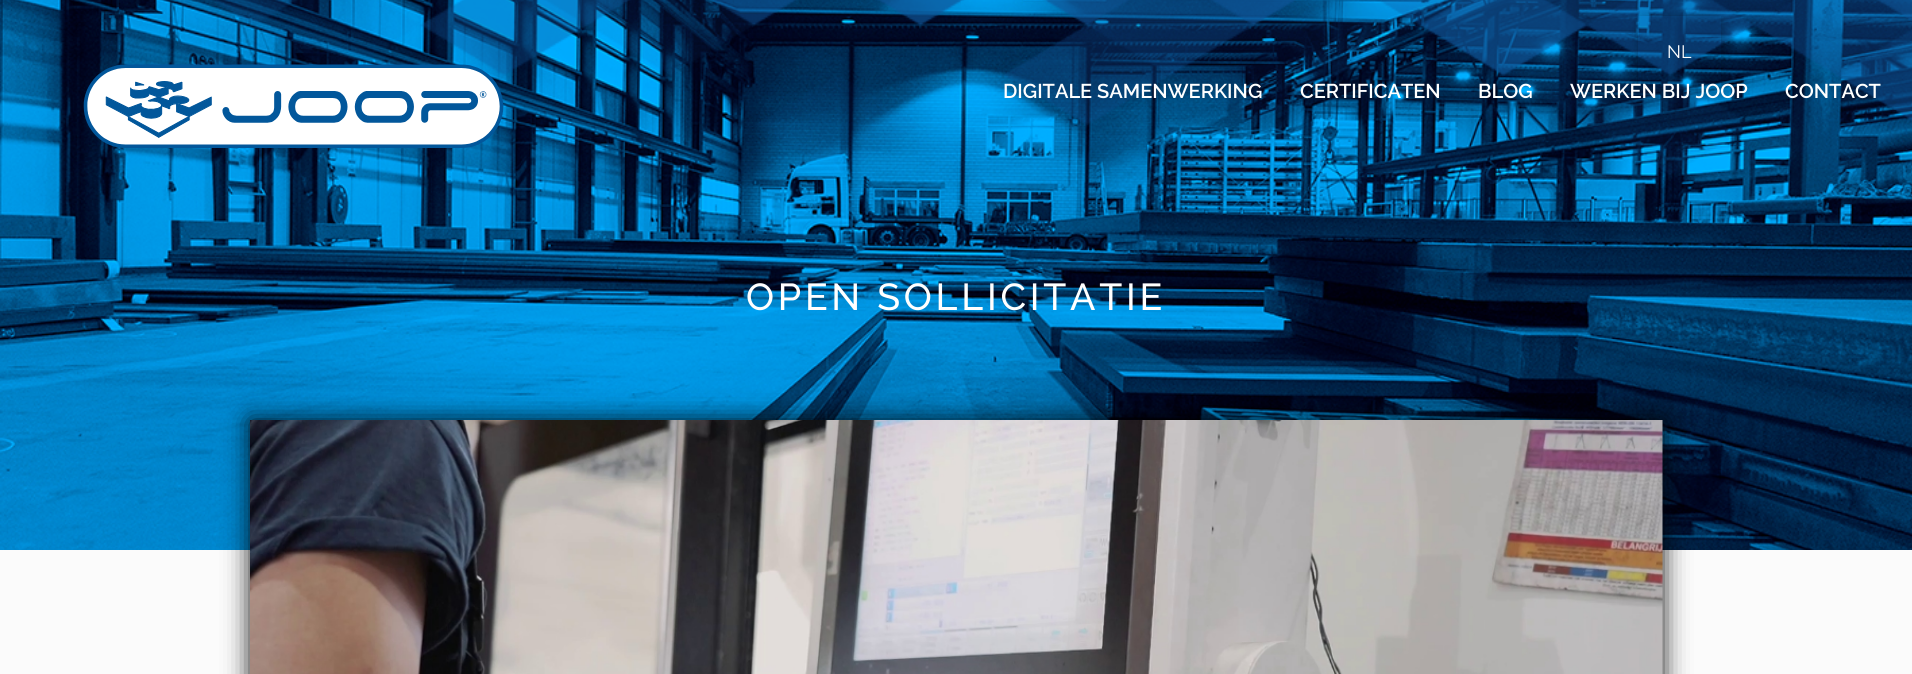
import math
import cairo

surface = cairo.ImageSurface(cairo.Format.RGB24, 1912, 674)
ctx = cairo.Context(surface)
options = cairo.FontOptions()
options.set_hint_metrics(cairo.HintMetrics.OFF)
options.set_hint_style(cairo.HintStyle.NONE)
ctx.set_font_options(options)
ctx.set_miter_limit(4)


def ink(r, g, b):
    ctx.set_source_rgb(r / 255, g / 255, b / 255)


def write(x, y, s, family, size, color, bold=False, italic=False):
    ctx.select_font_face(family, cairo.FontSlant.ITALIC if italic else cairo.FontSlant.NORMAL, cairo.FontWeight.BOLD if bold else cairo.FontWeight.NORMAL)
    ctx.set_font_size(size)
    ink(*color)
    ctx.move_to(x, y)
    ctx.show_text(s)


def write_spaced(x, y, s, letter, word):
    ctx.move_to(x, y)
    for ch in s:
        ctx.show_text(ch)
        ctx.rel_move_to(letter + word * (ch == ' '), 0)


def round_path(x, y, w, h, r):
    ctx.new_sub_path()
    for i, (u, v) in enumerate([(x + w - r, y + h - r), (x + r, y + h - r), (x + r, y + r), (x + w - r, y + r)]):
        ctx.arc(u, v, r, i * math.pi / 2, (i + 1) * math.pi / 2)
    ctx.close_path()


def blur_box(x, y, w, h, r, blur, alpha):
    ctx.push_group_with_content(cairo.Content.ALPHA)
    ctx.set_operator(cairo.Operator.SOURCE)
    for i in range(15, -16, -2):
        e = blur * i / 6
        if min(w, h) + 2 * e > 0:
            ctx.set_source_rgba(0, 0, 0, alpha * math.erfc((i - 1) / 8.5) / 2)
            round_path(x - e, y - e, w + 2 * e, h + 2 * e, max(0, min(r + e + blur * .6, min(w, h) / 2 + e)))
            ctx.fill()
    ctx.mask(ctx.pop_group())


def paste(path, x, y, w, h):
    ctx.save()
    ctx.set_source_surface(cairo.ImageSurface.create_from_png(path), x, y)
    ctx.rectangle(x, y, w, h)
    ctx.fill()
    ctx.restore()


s1 = dict(family="Raleway", size=18, color=(255, 255, 255))
s2 = dict(family="Raleway SemiBold", size=20, color=(255, 255, 255))

ink(251, 251, 251)
ctx.paint()
paste("pic1.png", 0, 0, 1912, 550)
paste("pic2.png", 212, 0, 1700, 223)
ctx.save()
ctx.set_fill_rule(cairo.FillRule.EVEN_ODD)
ctx.new_path()
ctx.move_to(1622, 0)
ctx.line_to(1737, 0)
ctx.line_to(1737, 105)
ctx.line_to(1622, 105)
ctx.close_path()
ctx.move_to(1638, 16)
ctx.line_to(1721, 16)
ctx.line_to(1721, 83)
ctx.curve_to(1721, 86.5, 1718.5, 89, 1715, 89)
ctx.line_to(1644, 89)
ctx.curve_to(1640.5, 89, 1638, 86.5, 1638, 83)
ctx.close_path()
ctx.clip()
ink(0, 0, 0)
blur_box(1638, 16, 83, 73, 6, 5, 0.25)
ctx.restore()
write(1667, 58, "NL", **s1)
paste("pic3.png", 83, 64, 421, 84)
write(1003, 98, "DIGITALE SAMENWERKING", **s2)
write(1300, 98, "CERTIFICATEN", **s2)
write(1478, 98, "BLOG", **s2)
write(1570, 98, "WERKEN BIJ JOOP", **s2)
write(1785, 98, "CONTACT", **s2)
ctx.select_font_face("Raleway Medium")
ctx.set_font_size(37.5)
write_spaced(746, 310, "OPEN SOLLICITATIE", 3.75, 0)
ink(0, 0, 0)
blur_box(250, 420, 1413, 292, 0, 12.5, 0.9)
paste("pic4.png", 250, 420, 1413, 254)
surface.write_to_png("screenshot.png")
